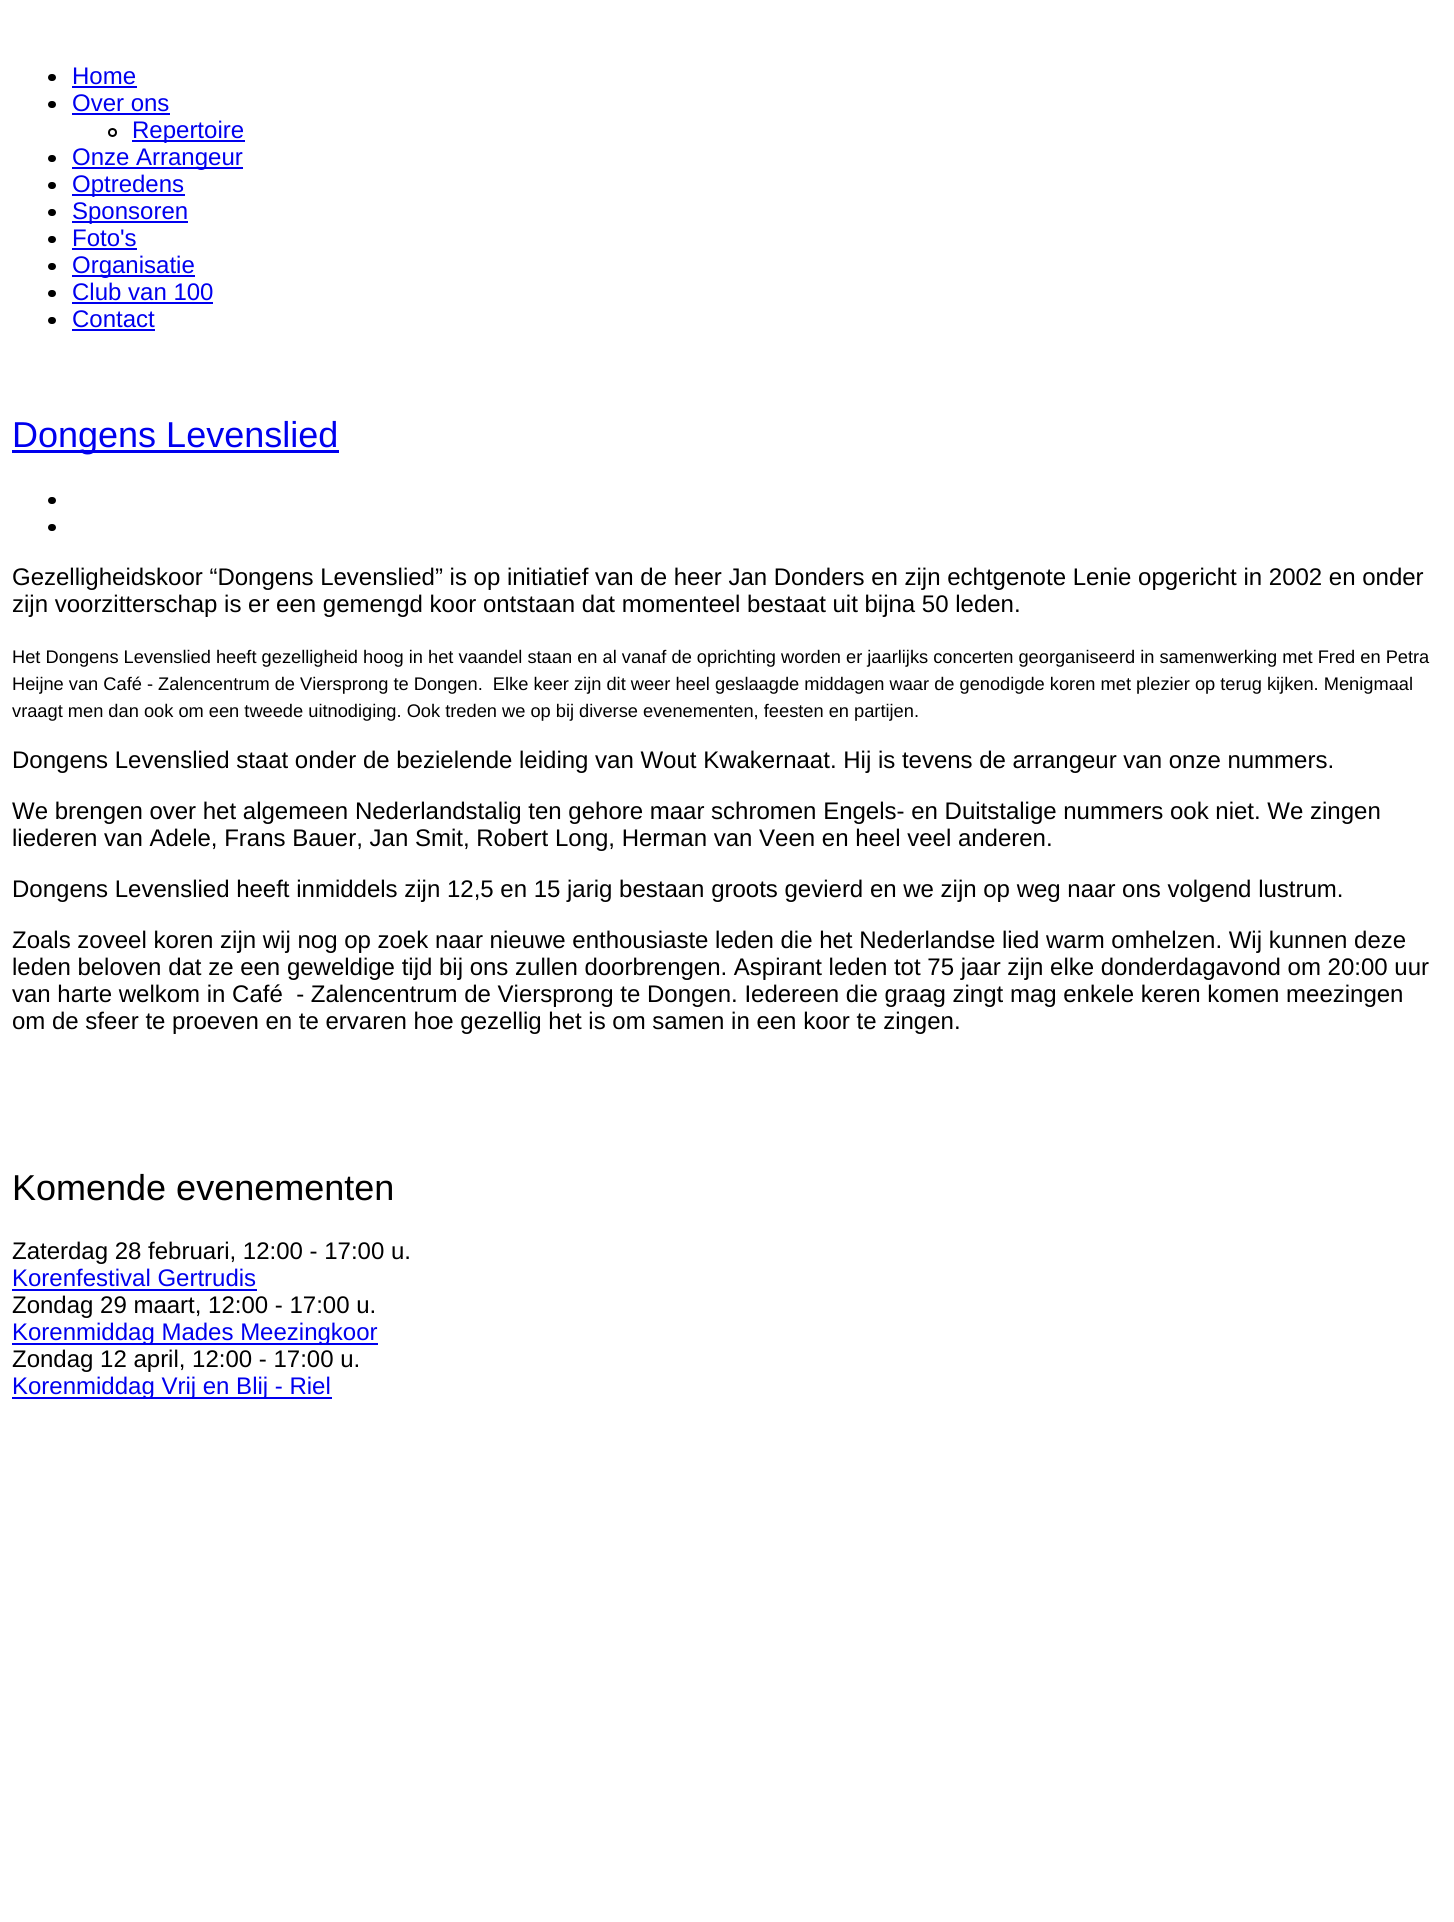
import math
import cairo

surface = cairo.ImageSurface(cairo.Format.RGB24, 1454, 1922)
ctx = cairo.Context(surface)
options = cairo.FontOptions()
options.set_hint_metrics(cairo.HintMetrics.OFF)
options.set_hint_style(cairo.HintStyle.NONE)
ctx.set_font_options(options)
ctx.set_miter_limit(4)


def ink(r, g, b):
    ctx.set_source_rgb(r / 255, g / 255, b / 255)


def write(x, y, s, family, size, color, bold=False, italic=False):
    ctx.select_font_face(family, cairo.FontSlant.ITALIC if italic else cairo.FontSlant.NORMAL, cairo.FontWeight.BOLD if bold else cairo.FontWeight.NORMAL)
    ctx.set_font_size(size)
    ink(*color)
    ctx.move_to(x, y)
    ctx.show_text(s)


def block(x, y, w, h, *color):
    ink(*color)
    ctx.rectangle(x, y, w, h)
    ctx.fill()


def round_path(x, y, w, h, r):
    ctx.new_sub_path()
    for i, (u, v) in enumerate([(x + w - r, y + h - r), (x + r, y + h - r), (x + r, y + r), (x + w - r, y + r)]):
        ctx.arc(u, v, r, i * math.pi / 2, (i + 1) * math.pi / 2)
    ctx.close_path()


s1 = dict(family="Liberation Sans", size=24, color=(0, 0, 238))
s2 = dict(family="Liberation Sans", size=36, color=(0, 0, 238))
s3 = dict(family="Liberation Sans", size=24, color=(0, 0, 0))
s4 = dict(family="Liberation Sans", size=18.25, color=(0, 0, 0))
s5 = dict(family="Liberation Sans", size=36, color=(0, 0, 0))

ink(255, 255, 255)
ctx.paint()
ink(0, 0, 0)
round_path(48, 74, 8, 7, 3.5)
ctx.fill()
write(72, 84, "Home", **s1)
block(72, 86, 65, 2, 0, 0, 238)
ink(0, 0, 0)
round_path(48, 101, 8, 7, 3.5)
ctx.fill()
write(72, 111, "Over ons", **s1)
block(72, 113, 98, 2, 0, 0, 238)
ctx.new_path()
ctx.arc(112.5, 132.5, 3.5, 0, 2 * math.pi)
ink(0, 0, 0)
ctx.stroke()
block(132, 140, 113, 2, 0, 0, 238)
write(132, 138, "Repertoire", **s1)
ink(0, 0, 0)
round_path(48, 155, 8, 7, 3.5)
ctx.fill()
block(72, 167, 171, 2, 0, 0, 238)
write(72, 165, "Onze Arrangeur", **s1)
ink(0, 0, 0)
round_path(48, 182, 8, 7, 3.5)
ctx.fill()
block(72, 194, 113, 2, 0, 0, 238)
write(72, 192, "Optredens", **s1)
ink(0, 0, 0)
round_path(48, 209, 8, 7, 3.5)
ctx.fill()
block(72, 221, 116, 2, 0, 0, 238)
write(72, 219, "Sponsoren", **s1)
ink(0, 0, 0)
round_path(48, 236, 8, 7, 3.5)
ctx.fill()
write(72, 246, "Foto's", **s1)
block(72, 248, 65, 2, 0, 0, 238)
ink(0, 0, 0)
round_path(48, 263, 8, 7, 3.5)
ctx.fill()
block(72, 275, 123, 2, 0, 0, 238)
write(72, 273, "Organisatie", **s1)
ink(0, 0, 0)
round_path(48, 290, 8, 7, 3.5)
ctx.fill()
write(72, 300, "Club van 100", **s1)
block(72, 302, 141, 2, 0, 0, 238)
ink(0, 0, 0)
round_path(48, 317, 8, 7, 3.5)
ctx.fill()
write(72, 327, "Contact", **s1)
block(72, 329, 83, 2, 0, 0, 238)
block(12, 450, 327, 3, 0, 0, 238)
write(12, 447, "Dongens Levenslied", **s2)
ink(0, 0, 0)
round_path(48, 497, 8, 7, 3.5)
ctx.fill()
round_path(48, 524, 8, 7, 3.5)
ctx.fill()
write(12, 585, "Gezelligheidskoor “Dongens Levenslied” is op initiatief van de heer Jan Donders en zijn echtgenote Lenie opgericht in 2002 en onder", **s3)
write(12, 612, "zijn voorzitterschap is er een gemengd koor ontstaan dat momenteel bestaat uit bijna 50 leden.", **s3)
write(12, 663, "Het Dongens Levenslied heeft gezelligheid hoog in het vaandel staan en al vanaf de oprichting worden er jaarlijks concerten georganiseerd in samenwerking met Fred en Petra", **s4)
write(12, 690, "Heijne van Café - Zalencentrum de Viersprong te Dongen.  Elke keer zijn dit weer heel geslaagde middagen waar de genodigde koren met plezier op terug kijken. Menigmaal", **s4)
write(12, 717, "vraagt men dan ook om een tweede uitnodiging. Ook treden we op bij diverse evenementen, feesten en partijen.", **s4)
write(12, 768, "Dongens Levenslied staat onder de bezielende leiding van Wout Kwakernaat. Hij is tevens de arrangeur van onze nummers.", **s3)
write(12, 819, "We brengen over het algemeen Nederlandstalig ten gehore maar schromen Engels- en Duitstalige nummers ook niet. We zingen", **s3)
write(12, 846, "liederen van Adele, Frans Bauer, Jan Smit, Robert Long, Herman van Veen en heel veel anderen.", **s3)
write(12, 897, "Dongens Levenslied heeft inmiddels zijn 12,5 en 15 jarig bestaan groots gevierd en we zijn op weg naar ons volgend lustrum.", **s3)
write(12, 948, "Zoals zoveel koren zijn wij nog op zoek naar nieuwe enthousiaste leden die het Nederlandse lied warm omhelzen. Wij kunnen deze", **s3)
write(12, 975, "leden beloven dat ze een geweldige tijd bij ons zullen doorbrengen. Aspirant leden tot 75 jaar zijn elke donderdagavond om 20:00 uur", **s3)
write(12, 1002, "van harte welkom in Café  - Zalencentrum de Viersprong te Dongen. Iedereen die graag zingt mag enkele keren komen meezingen", **s3)
write(12, 1029, "om de sfeer te proeven en te ervaren hoe gezellig het is om samen in een koor te zingen.", **s3)
write(12, 1200, "Komende evenementen", **s5)
write(12, 1259, "Zaterdag 28 februari, 12:00 - 17:00 u.", **s3)
write(12, 1286, "Korenfestival Gertrudis", **s1)
block(12, 1289, 245, 2, 0, 0, 238)
write(12, 1313, "Zondag 29 maart, 12:00 - 17:00 u.", **s3)
block(12, 1343, 366, 2, 0, 0, 238)
write(12, 1340, "Korenmiddag Mades Meezingkoor", **s1)
write(12, 1367, "Zondag 12 april, 12:00 - 17:00 u.", **s3)
block(12, 1397, 320, 2, 0, 0, 238)
write(12, 1394, "Korenmiddag Vrij en Blij - Riel", **s1)
surface.write_to_png("screenshot.png")
